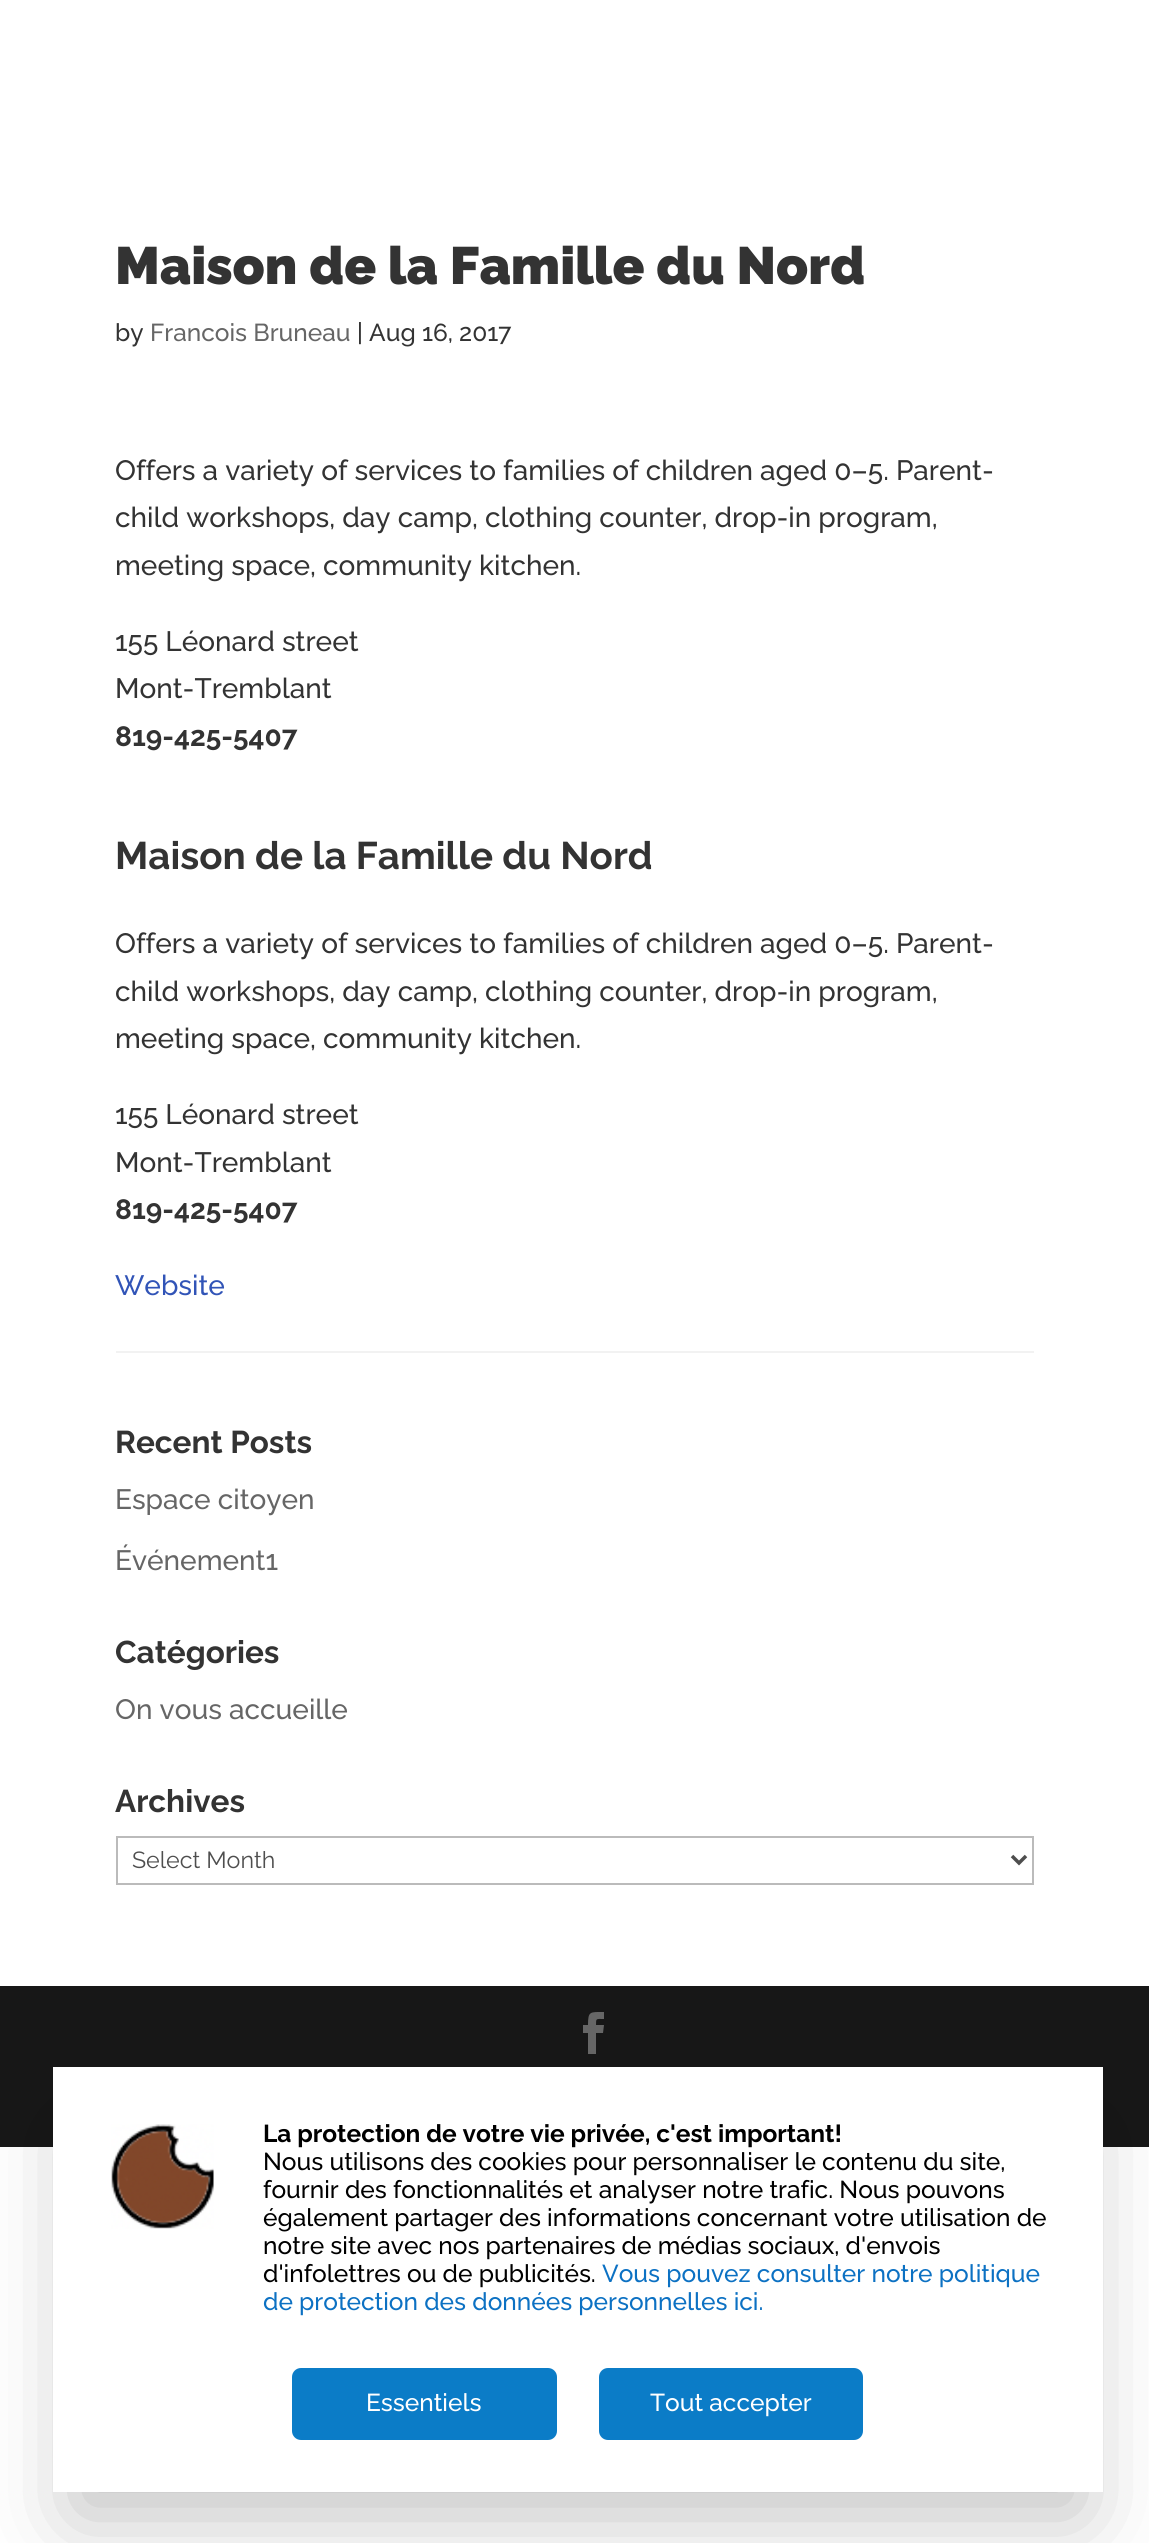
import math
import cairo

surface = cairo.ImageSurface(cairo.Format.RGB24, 1149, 2543)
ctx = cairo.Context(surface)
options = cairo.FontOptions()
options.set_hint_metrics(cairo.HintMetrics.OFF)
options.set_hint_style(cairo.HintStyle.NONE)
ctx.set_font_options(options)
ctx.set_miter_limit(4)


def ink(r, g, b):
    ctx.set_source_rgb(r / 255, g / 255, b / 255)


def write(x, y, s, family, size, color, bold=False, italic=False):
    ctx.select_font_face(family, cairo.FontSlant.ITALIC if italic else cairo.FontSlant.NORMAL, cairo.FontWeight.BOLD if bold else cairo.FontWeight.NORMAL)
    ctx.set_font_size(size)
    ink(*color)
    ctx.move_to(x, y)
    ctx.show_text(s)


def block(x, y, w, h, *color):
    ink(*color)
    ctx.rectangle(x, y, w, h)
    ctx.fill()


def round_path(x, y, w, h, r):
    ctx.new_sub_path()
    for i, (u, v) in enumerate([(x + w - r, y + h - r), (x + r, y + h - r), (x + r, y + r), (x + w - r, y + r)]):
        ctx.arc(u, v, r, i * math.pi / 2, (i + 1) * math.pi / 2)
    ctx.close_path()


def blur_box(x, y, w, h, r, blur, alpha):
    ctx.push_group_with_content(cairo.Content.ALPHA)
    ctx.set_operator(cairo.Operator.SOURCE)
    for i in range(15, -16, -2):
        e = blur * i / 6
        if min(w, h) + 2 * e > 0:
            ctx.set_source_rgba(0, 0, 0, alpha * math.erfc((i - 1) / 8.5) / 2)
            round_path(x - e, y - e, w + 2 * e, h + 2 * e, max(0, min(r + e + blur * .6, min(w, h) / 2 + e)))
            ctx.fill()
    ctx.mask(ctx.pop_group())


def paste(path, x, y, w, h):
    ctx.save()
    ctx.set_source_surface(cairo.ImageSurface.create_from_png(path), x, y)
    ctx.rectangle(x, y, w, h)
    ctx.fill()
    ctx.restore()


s1 = dict(family="Raleway Black", size=52.5, color=(51, 51, 51))
s2 = dict(family="Raleway Medium", size=24.5, color=(51, 51, 51))
s3 = dict(family="Raleway Medium", size=24.5, color=(102, 102, 102))
s4 = dict(family="Raleway Medium", size=28, color=(51, 51, 51))
s5 = dict(family="Raleway", size=28, color=(51, 51, 51), bold=True)
s6 = dict(family="Raleway", size=38.5, color=(51, 51, 51), bold=True)
s7 = dict(family="Raleway Medium", size=28, color=(49, 84, 183))
s8 = dict(family="Raleway", size=31.5, color=(51, 51, 51), bold=True)
s9 = dict(family="Raleway Medium", size=28, color=(102, 102, 102))
s10 = dict(family="Raleway", size=23.25, color=(78, 78, 78))
s11 = dict(family="Raleway", size=24.5, color=(0, 0, 0), bold=True)
s12 = dict(family="Raleway Medium", size=24.5, color=(0, 0, 0))
s13 = dict(family="Raleway Medium", size=24.5, color=(12, 113, 195))
s14 = dict(family="Raleway Medium", size=24.5, color=(255, 255, 255))

ink(255, 255, 255)
ctx.paint()
write(115, 284, "Maison de la Famille du Nord", **s1)
write(115, 341, "by", **s2)
write(150, 341, "Francois Bruneau", **s3)
write(357, 341, "| Aug 16, 2017", **s2)
write(115, 480, "Offers a variety of services to families of children aged 0–5. Parent-", **s4)
write(115, 527, "child workshops, day camp, clothing counter, drop-in program,", **s4)
write(115, 575, "meeting space, community kitchen.", **s4)
write(115, 651, "155 Léonard street", **s4)
write(115, 698, "Mont-Tremblant", **s4)
write(115, 746, "819-425-5407", **s5)
write(115, 869, "Maison de la Famille du Nord", **s6)
write(115, 953, "Offers a variety of services to families of children aged 0–5. Parent-", **s4)
write(115, 1001, "child workshops, day camp, clothing counter, drop-in program,", **s4)
write(115, 1048, "meeting space, community kitchen.", **s4)
write(115, 1124, "155 Léonard street", **s4)
write(115, 1172, "Mont-Tremblant", **s4)
write(115, 1219, "819-425-5407", **s5)
write(115, 1295, "Website", **s7)
block(116, 1351, 918, 2, 242, 242, 242)
write(115, 1453, "Recent Posts", **s8)
write(115, 1509, "Espace citoyen", **s9)
write(115, 1570, "Événement1", **s9)
write(115, 1663, "Catégories", **s8)
write(115, 1719, "On vous accueille", **s9)
write(115, 1812, "Archives", **s8)
ctx.rectangle(117, 1837, 916, 47)
ink(187, 187, 187)
ctx.stroke()
ctx.new_path()
ctx.move_to(1012, 1856)
ctx.line_to(1019, 1863)
ctx.line_to(1026, 1856)
ink(78, 78, 78)
ctx.set_line_width(3.5)
ctx.stroke()
write(132, 1868, "Select Month", **s10)
block(0, 1986, 1149, 161, 23, 23, 23)
ink(102, 102, 102)
ctx.new_path()
ctx.move_to(588, 2054)
ctx.line_to(596, 2054)
ctx.line_to(596, 2033)
ctx.line_to(603, 2033)
ctx.line_to(604, 2025)
ctx.line_to(596, 2025)
ctx.curve_to(596, 2018, 596, 2019, 604, 2019)
ctx.line_to(604, 2012)
ctx.curve_to(590, 2012, 588, 2011, 588, 2025)
ctx.line_to(583, 2025)
ctx.line_to(583, 2033)
ctx.line_to(588, 2033)
ctx.close_path()
ctx.fill()
ink(0, 0, 0)
blur_box(74, 2132, 1008, 383, 0, 44, 0.25)
block(53, 2067, 1050, 425, 255, 255, 255)
paste("pic1.png", 111, 2124, 103, 105)
write(263, 2142, "La protection de votre vie privée, c'est important!", **s11)
write(263, 2170, "Nous utilisons des cookies pour personnaliser le contenu du site,", **s12)
write(263, 2198, "fournir des fonctionnalités et analyser notre trafic. Nous pouvons", **s12)
write(263, 2226, "également partager des informations concernant votre utilisation de", **s12)
write(263, 2254, "notre site avec nos partenaires de médias sociaux, d'envois", **s12)
write(263, 2282, "d'infolettres ou de publicités.", **s12)
write(602, 2282, "Vous pouvez consulter notre politique", **s13)
write(263, 2310, "de protection des données personnelles ici.", **s13)
ink(11, 124, 199)
round_path(292, 2368, 265, 72, 9)
ctx.fill()
write(366, 2411, "Essentiels", **s14)
ink(11, 124, 199)
round_path(599, 2368, 264, 72, 9)
ctx.fill()
write(650, 2411, "Tout accepter", **s14)
surface.write_to_png("screenshot.png")
